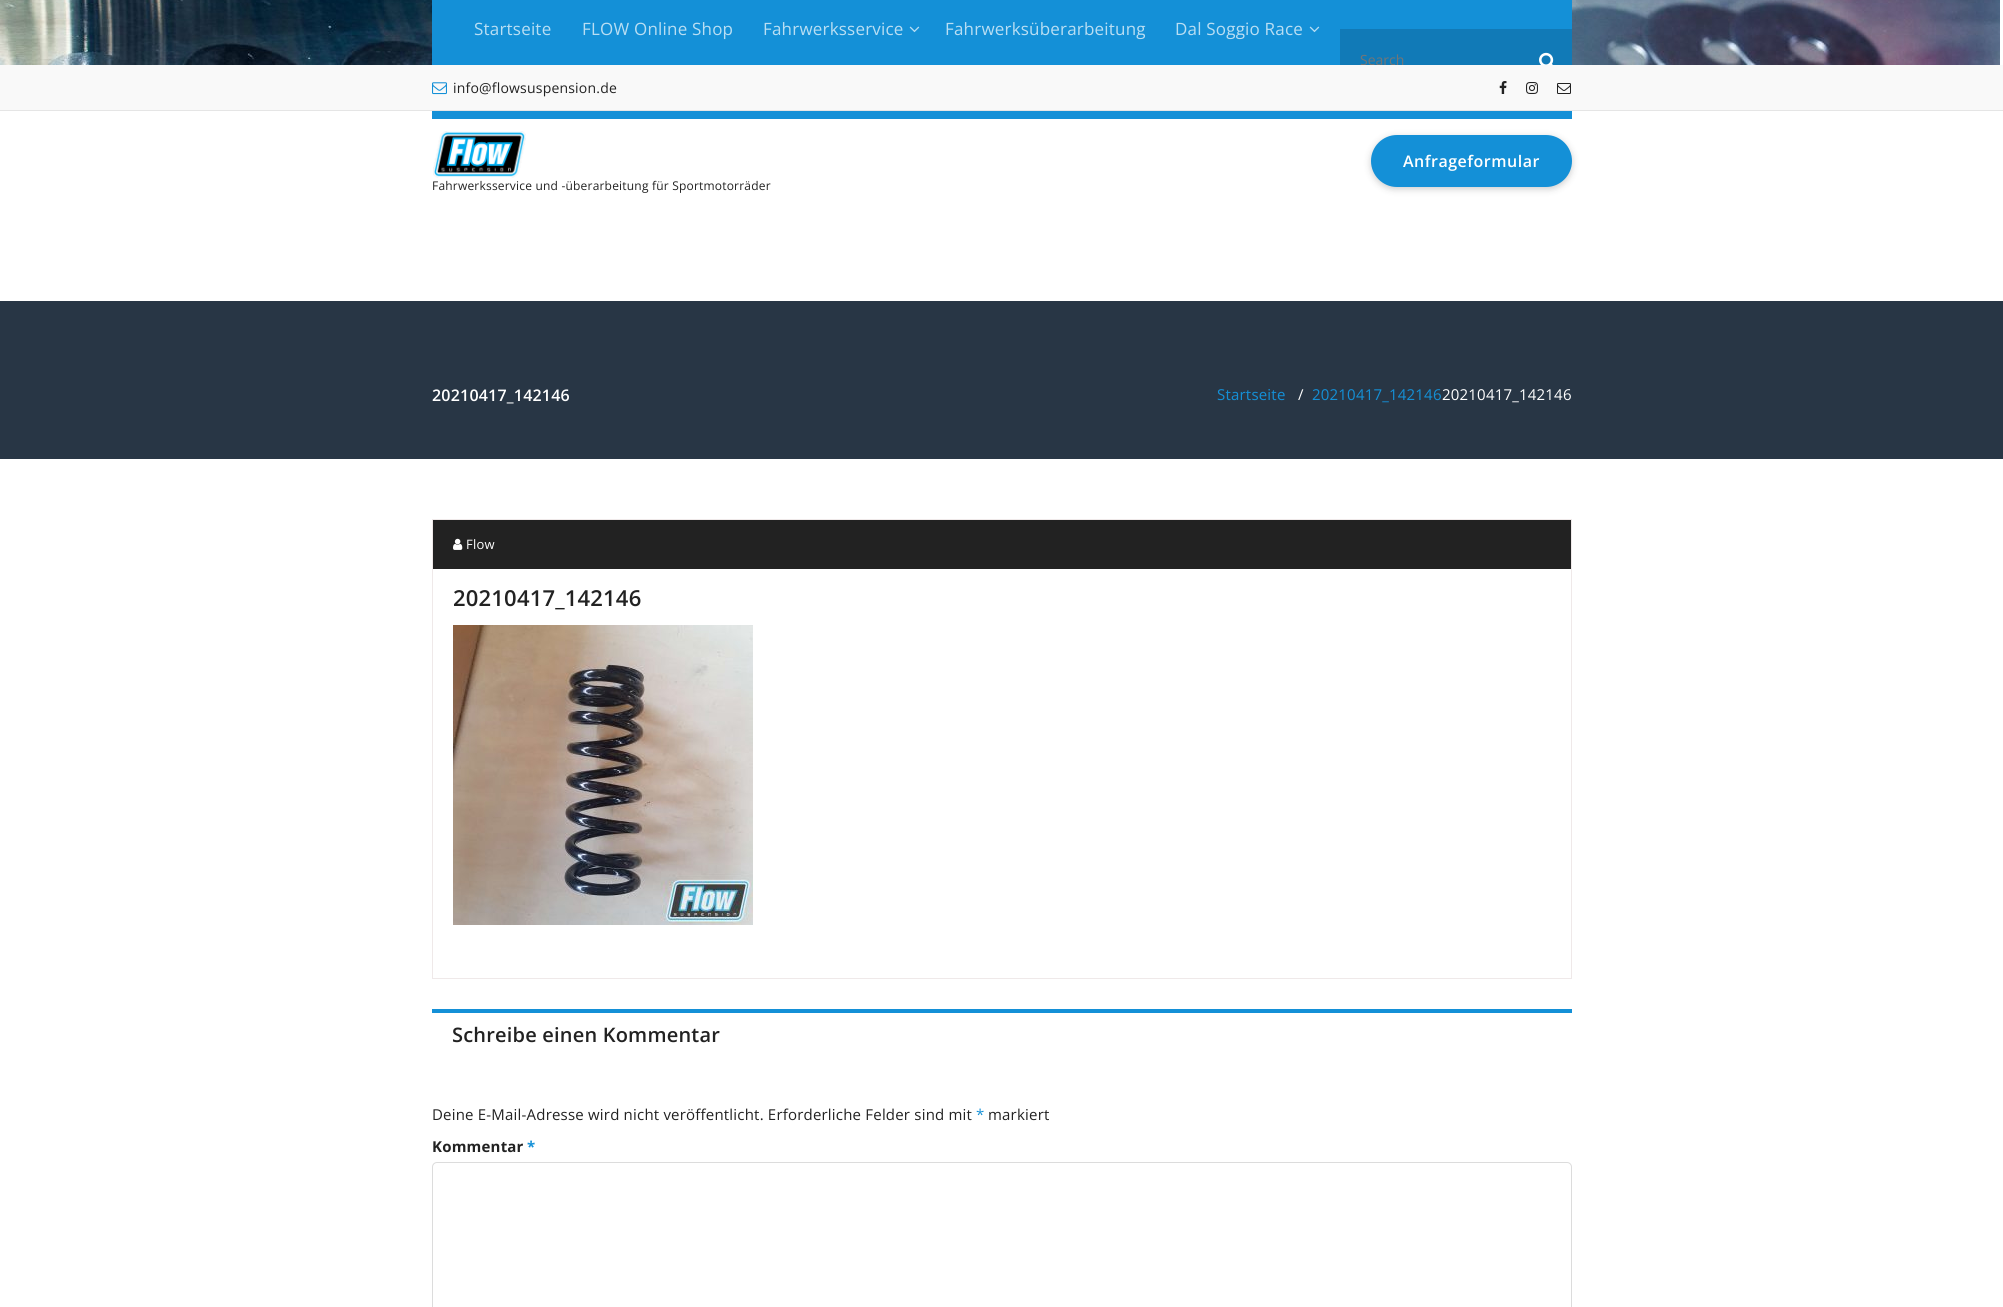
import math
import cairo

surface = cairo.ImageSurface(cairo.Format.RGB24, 2003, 1307)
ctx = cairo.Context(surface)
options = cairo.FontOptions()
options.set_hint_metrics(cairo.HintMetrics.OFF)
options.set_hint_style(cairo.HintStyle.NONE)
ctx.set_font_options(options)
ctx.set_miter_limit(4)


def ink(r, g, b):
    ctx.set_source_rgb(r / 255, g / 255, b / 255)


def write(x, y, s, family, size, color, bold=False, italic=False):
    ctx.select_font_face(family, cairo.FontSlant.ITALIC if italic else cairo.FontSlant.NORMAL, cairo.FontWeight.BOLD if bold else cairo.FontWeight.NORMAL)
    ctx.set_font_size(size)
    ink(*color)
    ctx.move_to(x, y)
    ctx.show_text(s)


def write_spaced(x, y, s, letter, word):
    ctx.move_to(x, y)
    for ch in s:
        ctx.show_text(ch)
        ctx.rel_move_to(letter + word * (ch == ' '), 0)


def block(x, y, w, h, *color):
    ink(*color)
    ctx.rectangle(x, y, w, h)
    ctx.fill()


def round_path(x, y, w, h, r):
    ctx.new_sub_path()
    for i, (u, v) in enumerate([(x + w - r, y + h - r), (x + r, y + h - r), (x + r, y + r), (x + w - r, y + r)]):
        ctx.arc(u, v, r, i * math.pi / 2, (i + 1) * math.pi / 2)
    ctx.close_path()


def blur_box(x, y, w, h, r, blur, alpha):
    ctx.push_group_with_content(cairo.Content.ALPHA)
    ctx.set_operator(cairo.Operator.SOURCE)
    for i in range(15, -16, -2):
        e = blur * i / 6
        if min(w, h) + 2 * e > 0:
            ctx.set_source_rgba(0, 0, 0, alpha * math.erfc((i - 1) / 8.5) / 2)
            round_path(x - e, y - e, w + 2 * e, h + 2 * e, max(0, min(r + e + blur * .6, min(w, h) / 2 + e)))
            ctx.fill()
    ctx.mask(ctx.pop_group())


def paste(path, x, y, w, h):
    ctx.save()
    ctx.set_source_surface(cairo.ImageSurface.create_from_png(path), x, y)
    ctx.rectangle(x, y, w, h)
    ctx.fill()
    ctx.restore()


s1 = dict(family="Open Sans", size=14, color=(117, 117, 117))

ink(255, 255, 255)
ctx.paint()
paste("pic1.png", 0, 0, 2000, 65)
block(432, 0, 1140, 119, 20, 144, 215)
ctx.select_font_face("Open Sans")
ctx.set_font_size(17)
ink(185, 222, 243)
write_spaced(474, 35, "Startseite", 0.2, 0)
write_spaced(582, 35, "FLOW Online Shop", 0.2, 0)
write_spaced(763, 35, "Fahrwerksservice", 0.2, 0)
paste("pic2.png", 909, 26, 11, 7)
write_spaced(945, 35, "Fahrwerksüberarbeitung", 0.2, 0)
write_spaced(1175, 35, "Dal Soggio Race", 0.2, 0)
paste("pic2.png", 1309, 26, 11, 7)
block(1340, 29, 232, 36, 17, 122, 183)
write(1360, 65, "Search", **s1)
paste("pic3.png", 1539, 52, 15, 13)
block(0, 65, 2003, 45, 249, 249, 249)
block(0, 110, 2003, 1, 229, 229, 229)
paste("pic4.png", 432, 82, 15, 13)
ink(34, 34, 34)
write_spaced(453, 93, "info@flowsuspension.de", 0.2, 0)
paste("pic5.png", 1499, 81, 8, 13)
paste("pic6.png", 1526, 82, 12, 12)
paste("pic7.png", 1557, 83, 14, 11)
ink(29, 29, 29)
blur_box(1372, 138, 199, 50, 25, 4, 0.28)
ink(20, 144, 215)
round_path(1372, 136, 199, 50, 25)
ctx.fill_preserve()
ctx.stroke()
ctx.select_font_face("Open Sans SemiBold")
ctx.set_font_size(16)
ink(255, 255, 255)
write_spaced(1403, 167, "Anfrageformular", 0.5, 0)
paste("pic8.png", 433, 131, 93, 47)
ctx.select_font_face("Open Sans")
ctx.set_font_size(12)
ink(34, 34, 34)
write_spaced(432, 190, "Fahrwerksservice und -überarbeitung für Sportmotorräder", 0.2, 0)
block(0, 301, 2003, 158, 40, 54, 69)
ctx.select_font_face("Open Sans SemiBold")
ctx.set_font_size(16)
ink(255, 255, 255)
write_spaced(432, 401, "20210417_142146", 0.2, 0)
ctx.select_font_face("Open Sans")
ctx.set_font_size(15)
ink(20, 144, 215)
write_spaced(1217, 400, "Startseite", 0.2, 0)
ink(255, 255, 255)
write_spaced(1298, 400, "/", 0.2, 0)
ink(20, 144, 215)
write_spaced(1312, 400, "20210417_142146", 0.2, 0)
ink(255, 255, 255)
write_spaced(1442, 400, "20210417_142146", 0.2, 0)
ctx.rectangle(432.5, 519.5, 1139, 459)
ink(239, 233, 233)
ctx.set_line_width(1)
ctx.stroke()
block(433, 520, 1138, 49, 34, 34, 34)
paste("pic9.png", 453, 538, 10, 12)
ctx.set_font_size(13)
ink(255, 255, 255)
write_spaced(466, 549, "Flow", 0.2, 0)
ctx.select_font_face("Open Sans SemiBold")
ctx.set_font_size(22)
ink(34, 34, 34)
write_spaced(453, 606, "20210417_142146", 0.2, 0)
paste("pic10.png", 453, 625, 300, 300)
block(432, 1009, 1140, 4, 20, 144, 215)
ctx.set_font_size(20)
ink(34, 34, 34)
write_spaced(452, 1042, "Schreibe einen Kommentar", 0.2, 0)
ctx.select_font_face("Open Sans")
ctx.set_font_size(15)
write_spaced(432, 1120, "Deine E-Mail-Adresse wird nicht veröffentlicht. Erforderliche Felder sind mit", 0.2, 0)
ink(20, 144, 215)
write_spaced(976, 1120, "*", 0.2, 0)
ink(34, 34, 34)
write_spaced(988, 1120, "markiert", 0.2, 0)
ctx.select_font_face("Open Sans", cairo.FontSlant.NORMAL, cairo.FontWeight.BOLD)
write_spaced(432, 1152, "Kommentar", 0.2, 0)
ink(20, 144, 215)
write_spaced(527, 1152, "*", 0.2, 0)
round_path(432.5, 1162.5, 1139, 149, 4.5)
ink(220, 220, 220)
ctx.stroke()
surface.write_to_png("screenshot.png")
